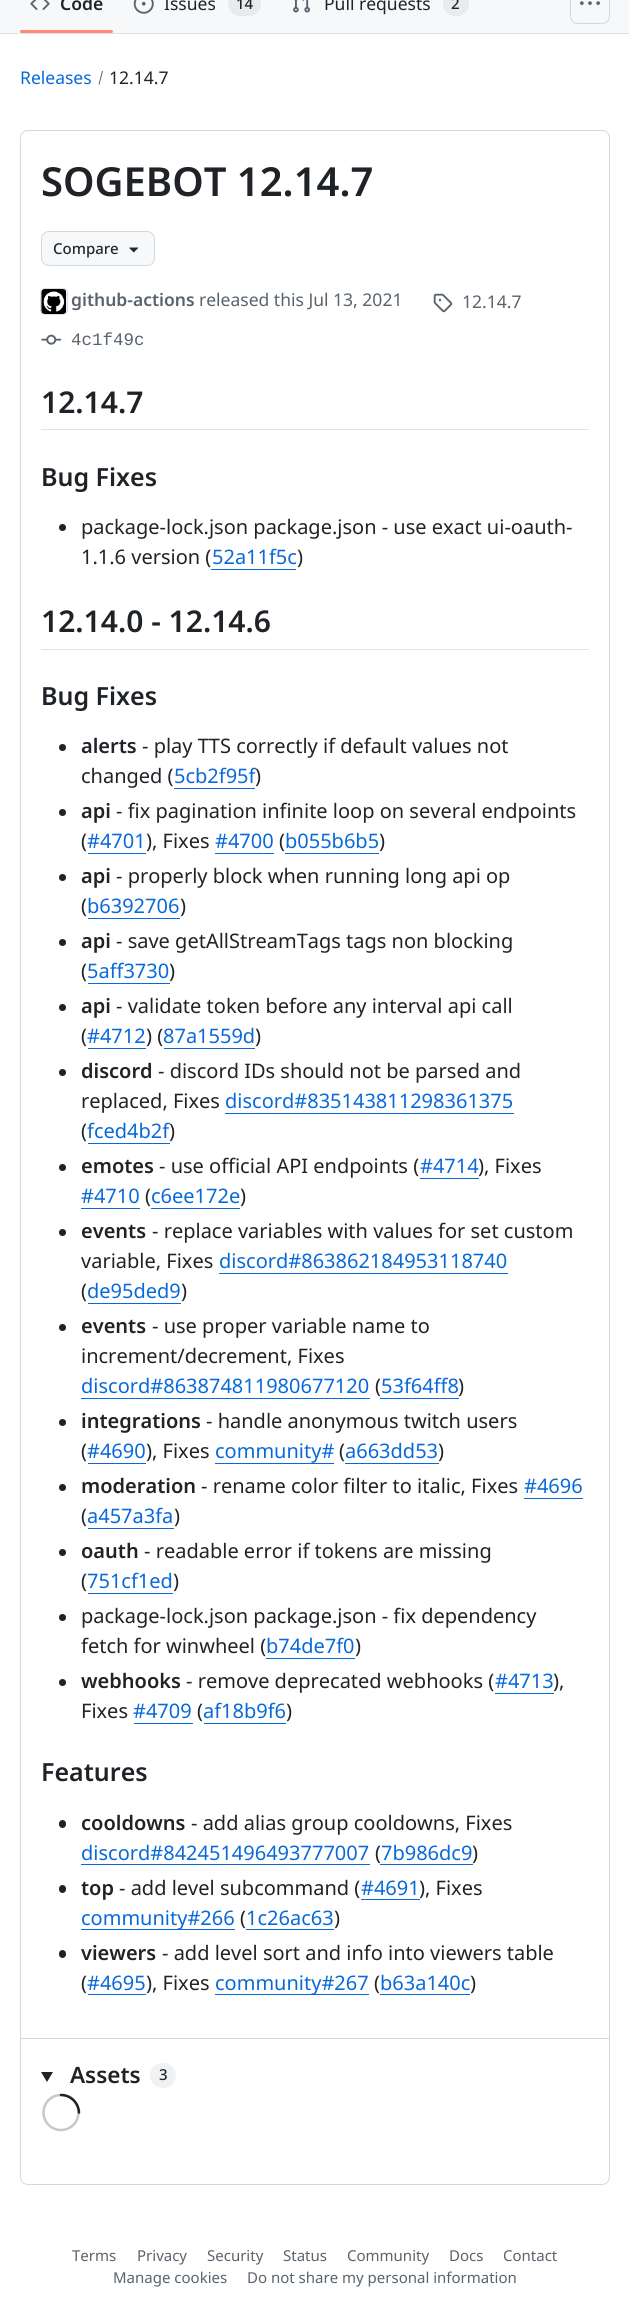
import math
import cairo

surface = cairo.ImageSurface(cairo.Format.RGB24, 629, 2298)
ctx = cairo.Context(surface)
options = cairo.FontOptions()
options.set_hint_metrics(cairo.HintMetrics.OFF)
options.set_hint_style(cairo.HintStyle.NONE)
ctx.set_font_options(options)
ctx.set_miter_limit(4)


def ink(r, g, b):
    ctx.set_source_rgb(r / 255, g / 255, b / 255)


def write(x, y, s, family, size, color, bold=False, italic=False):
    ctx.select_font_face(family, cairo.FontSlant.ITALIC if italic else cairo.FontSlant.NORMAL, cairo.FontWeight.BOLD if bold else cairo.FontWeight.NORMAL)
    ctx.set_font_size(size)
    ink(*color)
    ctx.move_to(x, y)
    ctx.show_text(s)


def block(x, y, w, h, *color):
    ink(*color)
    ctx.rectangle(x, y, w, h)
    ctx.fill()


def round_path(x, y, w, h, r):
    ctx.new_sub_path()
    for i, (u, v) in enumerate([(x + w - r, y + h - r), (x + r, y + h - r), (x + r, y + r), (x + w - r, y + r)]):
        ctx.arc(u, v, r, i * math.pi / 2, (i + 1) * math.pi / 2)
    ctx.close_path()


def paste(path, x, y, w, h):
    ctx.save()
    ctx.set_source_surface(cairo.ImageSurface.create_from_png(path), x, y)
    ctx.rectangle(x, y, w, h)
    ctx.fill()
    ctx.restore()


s1 = dict(family="Noto Sans SemiBold", size=17.5, color=(31, 35, 40))
s2 = dict(family="Noto Sans", size=17.5, color=(31, 35, 40))
s3 = dict(family="Noto Sans Medium", size=15, color=(31, 35, 40))
s4 = dict(family="Noto Sans", size=17.5, color=(9, 105, 218))
s5 = dict(family="Noto Sans SemiBold", size=40, color=(31, 35, 40))
s6 = dict(family="Noto Sans Medium", size=15, color=(37, 41, 46))
s7 = dict(family="Noto Sans SemiBold", size=17.5, color=(89, 99, 110))
s8 = dict(family="Noto Sans", size=17.5, color=(89, 99, 110))
s9 = dict(family="Liberation Mono", size=17.5, color=(89, 99, 110))
s10 = dict(family="Noto Sans SemiBold", size=30, color=(31, 35, 40))
s11 = dict(family="Noto Sans SemiBold", size=25, color=(31, 35, 40))
s12 = dict(family="Noto Sans", size=20, color=(31, 35, 40))
s13 = dict(family="Noto Sans", size=20, color=(9, 105, 218))
s14 = dict(family="Noto Sans SemiBold", size=20, color=(31, 35, 40))
s15 = dict(family="Noto Sans SemiBold", size=22.5, color=(31, 35, 40))
s16 = dict(family="Noto Sans", size=15, color=(89, 99, 110))

ink(255, 255, 255)
ctx.paint()
block(0, 0, 629, 33, 246, 248, 250)
block(0, 33, 629, 1, 220, 226, 232)
paste("pic1.png", 30, 0, 20, 10)
write(60, 10, "Code", **s1)
ink(253, 140, 115)
round_path(20, 30, 93, 3, 1.5)
ctx.fill()
paste("pic2.png", 133, 0, 21, 14)
write(164, 10, "Issues", **s2)
ink(232, 235, 238)
round_path(228, -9, 33, 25, 12.5)
ctx.fill()
write(236, 9, "14", **s3)
paste("pic3.png", 293, 0, 17, 13)
write(324, 10, "Pull requests", **s2)
ink(232, 235, 238)
round_path(443, -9, 26, 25, 12.5)
ctx.fill()
write(451, 9, "2", **s3)
round_path(570.5, -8.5, 39, 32, 7.5)
ink(209, 217, 224)
ctx.set_line_width(1)
ctx.stroke()
paste("pic4.png", 580, 1, 20, 4)
write(20, 84, "Releases", **s4)
ink(89, 99, 110)
ctx.new_path()
ctx.move_to(102, 71)
ctx.line_to(103, 71)
ctx.line_to(99.5, 84.5)
ctx.line_to(98.5, 84.5)
ctx.close_path()
ctx.fill()
write(109, 84, "12.14.7", **s2)
round_path(20.5, 130.5, 589, 2054, 7.5)
ink(209, 217, 224)
ctx.stroke()
block(21, 2038, 588, 1, 209, 217, 224)
write(41, 196, "SOGEBOT 12.14.7", **s5)
ink(246, 248, 250)
round_path(41.5, 231.5, 113, 34, 7.5)
ctx.fill_preserve()
ink(209, 217, 224)
ctx.stroke()
write(53, 254, "Compare", **s6)
paste("pic5.png", 129, 247, 10, 6)
round_path(40.5, 288.5, 27, 26, 4.5)
ink(221, 222, 223)
ctx.stroke()
ink(255, 255, 255)
round_path(41, 289, 25, 25, 4)
ctx.fill()
paste("pic6.png", 41, 289, 26, 25)
write(71, 306, "github-actions", **s7)
write(199, 306, "released this Jul 13, 2021", **s8)
paste("pic7.png", 433, 293, 20, 20)
write(462, 308, "12.14.7", **s8)
paste("pic8.png", 41, 334, 21, 11)
write(71, 345, "4c1f49c", **s9)
block(41, 429, 548, 1, 223, 228, 233)
write(41, 413, "12.14.7", **s10)
write(41, 486, "Bug Fixes", **s11)
ctx.new_path()
ctx.arc(62.5, 527.5, 3.5, 0, 2 * math.pi)
ctx.fill()
write(81, 534, "package-lock.json package.json - use exact ui-oauth-", **s12)
write(81, 564, "1.1.6 version (", **s12)
write(212, 564, "52a11f5c", **s13)
block(211, 569, 85, 1, 9, 105, 218)
write(297, 564, ")", **s12)
block(41, 649, 548, 1, 223, 228, 233)
write(41, 632, "12.14.0 - 12.14.6", **s10)
write(41, 705, "Bug Fixes", **s11)
ctx.new_path()
ctx.arc(62.5, 747.5, 3.5, 0, 2 * math.pi)
ctx.fill()
write(81, 753, "alerts", **s14)
write(142, 753, "- play TTS correctly if default values not", **s12)
write(81, 783, "changed (", **s12)
write(174, 783, "5cb2f95f", **s13)
block(174, 788, 81, 1, 9, 105, 218)
write(255, 783, ")", **s12)
ctx.new_path()
ctx.arc(62.5, 812.5, 3.5, 0, 2 * math.pi)
ctx.fill()
write(81, 818, "api", **s14)
write(116, 818, "- fix pagination infinite loop on several endpoints", **s12)
write(81, 848, "(", **s12)
write(87, 848, "#4701", **s13)
block(88, 853, 58, 1, 9, 105, 218)
write(146, 848, "), Fixes", **s12)
write(215, 848, "#4700", **s13)
block(215, 853, 59, 1, 9, 105, 218)
write(279, 848, "(", **s12)
write(285, 848, "b055b6b5", **s13)
block(285, 853, 94, 1, 9, 105, 218)
write(379, 848, ")", **s12)
ctx.new_path()
ctx.arc(62.5, 877.5, 3.5, 0, 2 * math.pi)
ctx.fill()
write(81, 883, "api", **s14)
write(116, 883, "- properly block when running long api op", **s12)
write(81, 913, "(", **s12)
write(87, 913, "b6392706", **s13)
block(88, 918, 92, 1, 9, 105, 218)
write(180, 913, ")", **s12)
ctx.new_path()
ctx.arc(62.5, 942.5, 3.5, 0, 2 * math.pi)
ctx.fill()
write(81, 948, "api", **s14)
write(116, 948, "- save getAllStreamTags tags non blocking", **s12)
write(81, 978, "(", **s12)
write(87, 978, "5aff3730", **s13)
block(88, 983, 82, 1, 9, 105, 218)
write(169, 978, ")", **s12)
ctx.new_path()
ctx.arc(62.5, 1007.5, 3.5, 0, 2 * math.pi)
ctx.fill()
write(81, 1013, "api", **s14)
write(116, 1013, "- validate token before any interval api call", **s12)
write(81, 1043, "(", **s12)
write(87, 1043, "#4712", **s13)
block(88, 1048, 58, 1, 9, 105, 218)
write(146, 1043, ") (", **s12)
write(163, 1043, "87a1559d", **s13)
block(164, 1048, 91, 1, 9, 105, 218)
write(255, 1043, ")", **s12)
ctx.new_path()
ctx.arc(62.5, 1072.5, 3.5, 0, 2 * math.pi)
ctx.fill()
write(81, 1078, "discord", **s14)
write(158, 1078, "- discord IDs should not be parsed and", **s12)
write(81, 1108, "replaced, Fixes", **s12)
write(225, 1108, "discord#835143811298361375", **s13)
block(225, 1113, 289, 1, 9, 105, 218)
write(81, 1138, "(", **s12)
write(87, 1138, "fced4b2f", **s13)
block(88, 1143, 82, 1, 9, 105, 218)
write(169, 1138, ")", **s12)
ctx.new_path()
ctx.arc(62.5, 1167.5, 3.5, 0, 2 * math.pi)
ctx.fill()
write(81, 1173, "emotes", **s14)
write(159, 1173, "- use official API endpoints (", **s12)
write(420, 1173, "#4714", **s13)
block(420, 1178, 59, 1, 9, 105, 218)
write(478, 1173, "), Fixes", **s12)
write(81, 1203, "#4710", **s13)
block(81, 1208, 59, 1, 9, 105, 218)
write(145, 1203, "(", **s12)
write(151, 1203, "c6ee172e", **s13)
block(151, 1208, 89, 1, 9, 105, 218)
write(240, 1203, ")", **s12)
ctx.new_path()
ctx.arc(62.5, 1232.5, 3.5, 0, 2 * math.pi)
ctx.fill()
write(81, 1238, "events", **s14)
write(152, 1238, "- replace variables with values for set custom", **s12)
write(81, 1268, "variable, Fixes", **s12)
write(219, 1268, "discord#863862184953118740", **s13)
block(219, 1273, 289, 1, 9, 105, 218)
write(81, 1298, "(", **s12)
write(87, 1298, "de95ded9", **s13)
block(88, 1303, 93, 1, 9, 105, 218)
write(181, 1298, ")", **s12)
ctx.new_path()
ctx.arc(62.5, 1327.5, 3.5, 0, 2 * math.pi)
ctx.fill()
write(81, 1333, "events", **s14)
write(152, 1333, "- use proper variable name to", **s12)
write(81, 1363, "increment/decrement, Fixes", **s12)
write(81, 1393, "discord#863874811980677120", **s13)
block(81, 1398, 289, 1, 9, 105, 218)
write(375, 1393, "(", **s12)
write(381, 1393, "53f64ff8", **s13)
block(380, 1398, 79, 1, 9, 105, 218)
write(458, 1393, ")", **s12)
ctx.new_path()
ctx.arc(62.5, 1422.5, 3.5, 0, 2 * math.pi)
ctx.fill()
write(81, 1428, "integrations", **s14)
write(206, 1428, "- handle anonymous twitch users", **s12)
write(81, 1458, "(", **s12)
write(87, 1458, "#4690", **s13)
block(88, 1463, 58, 1, 9, 105, 218)
write(146, 1458, "), Fixes", **s12)
write(215, 1458, "community#", **s13)
block(215, 1463, 119, 1, 9, 105, 218)
write(339, 1458, "(", **s12)
write(345, 1458, "a663dd53", **s13)
block(345, 1463, 94, 1, 9, 105, 218)
write(438, 1458, ")", **s12)
ctx.new_path()
ctx.arc(62.5, 1487.5, 3.5, 0, 2 * math.pi)
ctx.fill()
write(81, 1493, "moderation", **s14)
write(201, 1493, "- rename color filter to italic, Fixes", **s12)
write(524, 1493, "#4696", **s13)
block(524, 1498, 59, 1, 9, 105, 218)
write(81, 1523, "(", **s12)
write(87, 1523, "a457a3fa", **s13)
block(88, 1528, 86, 1, 9, 105, 218)
write(174, 1523, ")", **s12)
ctx.new_path()
ctx.arc(62.5, 1552.5, 3.5, 0, 2 * math.pi)
ctx.fill()
write(81, 1558, "oauth", **s14)
write(144, 1558, "- readable error if tokens are missing", **s12)
write(81, 1588, "(", **s12)
write(87, 1588, "751cf1ed", **s13)
block(88, 1593, 85, 1, 9, 105, 218)
write(173, 1588, ")", **s12)
ctx.new_path()
ctx.arc(62.5, 1617.5, 3.5, 0, 2 * math.pi)
ctx.fill()
write(81, 1623, "package-lock.json package.json - fix dependency", **s12)
write(81, 1653, "fetch for winwheel (", **s12)
write(266, 1653, "b74de7f0", **s13)
block(266, 1658, 89, 1, 9, 105, 218)
write(355, 1653, ")", **s12)
ctx.new_path()
ctx.arc(62.5, 1682.5, 3.5, 0, 2 * math.pi)
ctx.fill()
write(81, 1688, "webhooks", **s14)
write(186, 1688, "- remove deprecated webhooks (", **s12)
write(495, 1688, "#4713", **s13)
block(495, 1693, 59, 1, 9, 105, 218)
write(553, 1688, "),", **s12)
write(81, 1718, "Fixes", **s12)
write(133, 1718, "#4709", **s13)
block(134, 1723, 59, 1, 9, 105, 218)
write(197, 1718, "(", **s12)
write(203, 1718, "af18b9f6", **s13)
block(204, 1723, 82, 1, 9, 105, 218)
write(286, 1718, ")", **s12)
write(41, 1781, "Features", **s11)
round_path(59, 1820, 7, 8, 3.5)
ctx.fill()
write(81, 1830, "cooldowns", **s14)
write(191, 1830, "- add alias group cooldowns, Fixes", **s12)
write(81, 1860, "discord#842451496493777007", **s13)
block(81, 1864, 289, 1, 9, 105, 218)
write(375, 1860, "(", **s12)
write(381, 1860, "7b986dc9", **s13)
block(380, 1864, 93, 1, 9, 105, 218)
write(472, 1860, ")", **s12)
round_path(59, 1885, 7, 8, 3.5)
ctx.fill()
write(81, 1895, "top", **s14)
write(119, 1895, "- add level subcommand (", **s12)
write(361, 1895, "#4691", **s13)
block(361, 1899, 59, 1, 9, 105, 218)
write(419, 1895, "), Fixes", **s12)
block(81, 1929, 154, 1, 9, 105, 218)
write(81, 1925, "community#266", **s13)
write(240, 1925, "(", **s12)
write(246, 1925, "1c26ac63", **s13)
block(246, 1929, 88, 1, 9, 105, 218)
write(334, 1925, ")", **s12)
round_path(59, 1950, 7, 8, 3.5)
ctx.fill()
write(81, 1960, "viewers", **s14)
write(162, 1960, "- add level sort and info into viewers table", **s12)
write(81, 1990, "(", **s12)
write(87, 1990, "#4695", **s13)
block(88, 1994, 58, 1, 9, 105, 218)
write(146, 1990, "), Fixes", **s12)
block(215, 1994, 154, 1, 9, 105, 218)
write(215, 1990, "community#267", **s13)
write(374, 1990, "(", **s12)
write(380, 1990, "b63a140c", **s13)
block(380, 1994, 90, 1, 9, 105, 218)
write(470, 1990, ")", **s12)
ctx.new_path()
ctx.move_to(41, 2072)
ctx.line_to(53, 2072)
ctx.line_to(47, 2082)
ctx.close_path()
ctx.fill()
write(70, 2083, "Assets", **s15)
ink(240, 241, 243)
round_path(150, 2063, 26, 25, 12.5)
ctx.fill()
write(159, 2080, "3", **s3)
ctx.new_path()
ctx.arc(61, 2112.5, 17.5, 0, 2 * math.pi)
ink(199, 200, 201)
ctx.set_line_width(2.5)
ctx.stroke()
ctx.new_path()
ctx.move_to(79, 2112.5)
ctx.curve_to(78.5, 2103, 71, 2095, 61, 2095)
ink(31, 35, 40)
ctx.set_line_cap(cairo.LineCap.ROUND)
ctx.stroke()
write(72, 2261, "Terms", **s16)
write(137, 2261, "Privacy", **s16)
write(207, 2261, "Security", **s16)
write(283, 2261, "Status", **s16)
write(347, 2261, "Community", **s16)
write(449, 2261, "Docs", **s16)
write(503, 2261, "Contact", **s16)
write(113, 2283, "Manage cookies", **s16)
write(247, 2283, "Do not share my personal information", **s16)
surface.write_to_png("screenshot.png")
